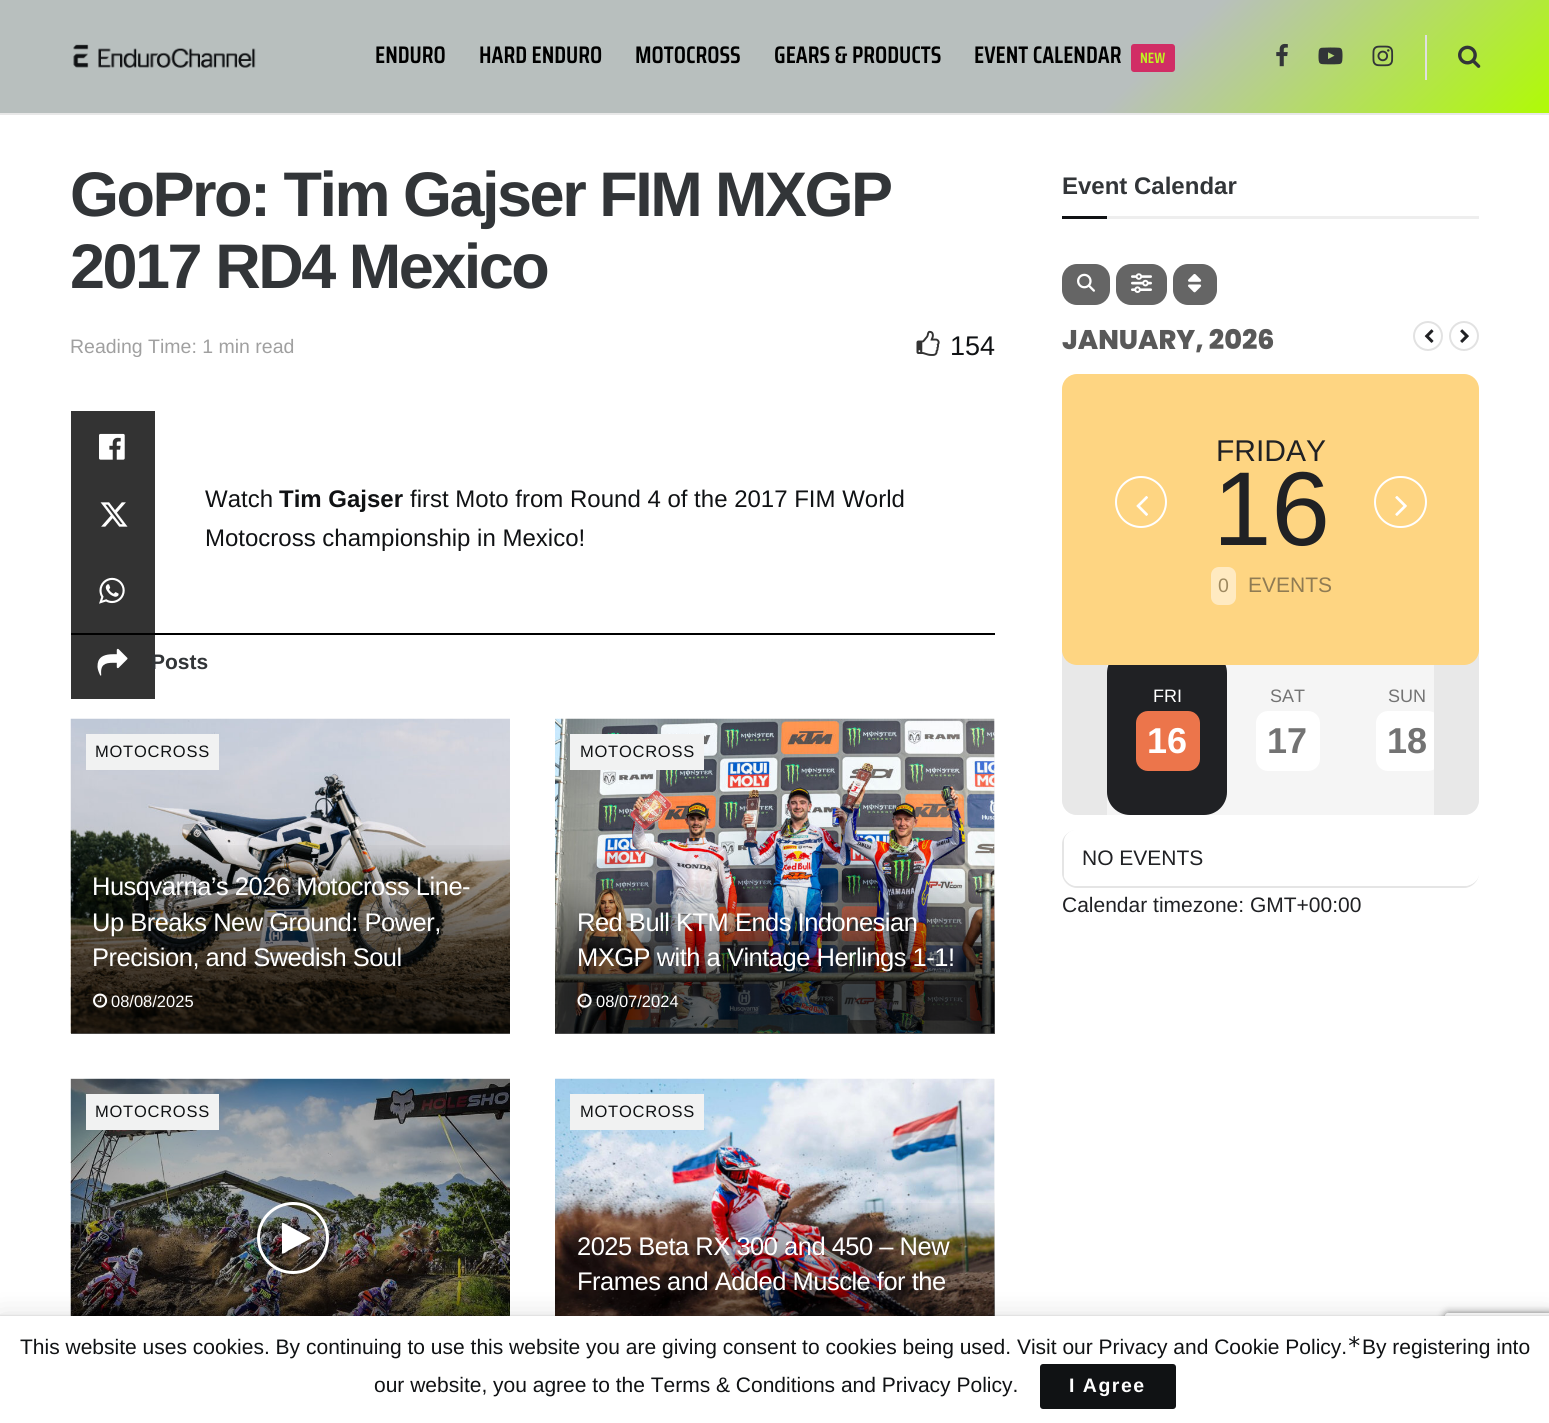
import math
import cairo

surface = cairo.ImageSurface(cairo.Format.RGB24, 1549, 1423)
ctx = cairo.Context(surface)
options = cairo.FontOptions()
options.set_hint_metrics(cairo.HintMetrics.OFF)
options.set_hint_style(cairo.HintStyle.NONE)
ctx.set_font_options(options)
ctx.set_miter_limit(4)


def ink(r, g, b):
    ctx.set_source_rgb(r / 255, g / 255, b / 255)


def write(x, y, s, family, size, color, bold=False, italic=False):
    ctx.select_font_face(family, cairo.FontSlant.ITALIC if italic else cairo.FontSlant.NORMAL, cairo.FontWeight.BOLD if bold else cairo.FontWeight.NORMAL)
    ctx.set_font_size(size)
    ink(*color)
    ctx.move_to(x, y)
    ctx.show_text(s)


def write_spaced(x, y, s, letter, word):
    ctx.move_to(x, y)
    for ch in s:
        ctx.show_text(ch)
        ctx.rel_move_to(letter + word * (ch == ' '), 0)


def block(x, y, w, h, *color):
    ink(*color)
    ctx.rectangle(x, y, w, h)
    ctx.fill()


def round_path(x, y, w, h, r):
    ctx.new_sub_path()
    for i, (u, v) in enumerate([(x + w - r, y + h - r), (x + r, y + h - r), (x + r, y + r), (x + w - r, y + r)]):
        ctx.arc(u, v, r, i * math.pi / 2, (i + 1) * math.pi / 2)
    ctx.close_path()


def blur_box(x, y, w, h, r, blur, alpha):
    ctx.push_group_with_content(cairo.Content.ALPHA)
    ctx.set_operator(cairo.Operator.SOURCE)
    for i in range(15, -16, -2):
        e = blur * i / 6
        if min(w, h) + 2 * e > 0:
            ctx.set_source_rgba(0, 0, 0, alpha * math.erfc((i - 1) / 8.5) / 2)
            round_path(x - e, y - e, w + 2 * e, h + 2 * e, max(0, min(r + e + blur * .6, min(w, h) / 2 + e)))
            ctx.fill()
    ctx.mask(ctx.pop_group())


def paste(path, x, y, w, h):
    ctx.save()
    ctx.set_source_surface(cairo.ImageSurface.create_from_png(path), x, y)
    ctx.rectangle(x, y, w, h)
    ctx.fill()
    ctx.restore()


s1 = dict(family="Saira Condensed SemiBold", size=24, color=(0, 0, 0))
s2 = dict(family="Saira Condensed SemiBold", size=15, color=(192, 242, 34))
s3 = dict(family="Liberation Sans", size=19.5, color=(160, 160, 160))
s4 = dict(family="Liberation Sans", size=27, color=(16, 18, 20))
s5 = dict(family="Liberation Sans", size=24, color=(16, 18, 20))
s6 = dict(family="Liberation Sans", size=24, color=(16, 18, 20), bold=True)
s7 = dict(family="Liberation Sans", size=21, color=(50, 53, 56), bold=True)
s8 = dict(family="Liberation Sans", size=16.5, color=(255, 255, 255))
s9 = dict(family="Liberation Sans", size=24, color=(50, 53, 56), bold=True)
s10 = dict(family="Poppins ExtraBold", size=27, color=(89, 89, 89))
s11 = dict(family="Liberation Sans", size=30, color=(32, 33, 36))
s12 = dict(family="Liberation Sans", size=105, color=(32, 33, 36))
s13 = dict(family="Liberation Sans", size=19.5, color=(158, 137, 96))
s14 = dict(family="Liberation Sans", size=21, color=(143, 123, 83))
s15 = dict(family="Liberation Sans", size=18, color=(255, 255, 255))
s16 = dict(family="Liberation Sans", size=36, color=(255, 255, 255), bold=True)
s17 = dict(family="Liberation Sans", size=18, color=(115, 115, 115))
s18 = dict(family="Liberation Sans", size=36, color=(115, 115, 115), bold=True)
s19 = dict(family="Liberation Sans", size=21, color=(32, 33, 36))
s20 = dict(family="Liberation Sans", size=21, color=(16, 18, 20))
s21 = dict(family="DejaVu Sans Mono", size=24, color=(16, 18, 20))

ink(255, 255, 255)
ctx.paint()
gradient = cairo.LinearGradient(386, -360, 1163, 473)
gradient.add_color_stop_rgba(0.73, 0.722, 0.749, 0.745, 1)
gradient.add_color_stop_rgba(1, 0.69, 0.984, 0.02, 1)
ctx.set_source(gradient)
ctx.rectangle(0, 0, 1549, 113)
ctx.fill()
block(0, 113, 1549, 2, 232, 232, 232)
paste("pic1.png", 73, 44, 183, 24)
write(375, 63, "ENDURO", **s1)
write(479, 63, "HARD ENDURO", **s1)
write(635, 63, "MOTOCROSS", **s1)
write(774, 63, "GEARS & PRODUCTS", **s1)
write(974, 63, "EVENT CALENDAR", **s1)
ink(209, 45, 101)
round_path(1131, 44, 44, 28, 3)
ctx.fill()
write(1140, 63, "NEW", **s2)
paste("pic2.png", 1276, 43, 12, 24)
paste("pic3.png", 1318, 47, 25, 18)
paste("pic4.png", 1372, 45, 22, 22)
block(1425, 35, 2, 45, 224, 224, 224)
paste("pic5.png", 1458, 45, 23, 23)
ctx.select_font_face("Liberation Sans", cairo.FontSlant.NORMAL, cairo.FontWeight.BOLD)
ctx.set_font_size(63)
ink(50, 53, 56)
write_spaced(70, 216, "GoPro: Tim Gajser FIM MXGP", -2.5, 0)
write_spaced(70, 288, "2017 RD4 Mexico", -2.5, 0)
write(70, 353, "Reading Time: 1 min read", **s3)
paste("pic6.png", 916, 330, 24, 26)
write(950, 355, "154", **s4)
block(71, 411, 84, 288, 51, 51, 51)
paste("pic7.png", 99, 433, 26, 27)
paste("pic8.png", 100, 502, 28, 25)
paste("pic9.png", 99, 577, 26, 27)
paste("pic10.png", 97, 648, 31, 28)
write(205, 507, "Watch", **s5)
write(279, 507, "Tim Gajser", **s6)
write(410, 507, "first Moto from Round 4 of the 2017 FIM World", **s5)
write(205, 546, "Motocross championship in Mexico!", **s5)
block(71, 633, 924, 2, 0, 0, 0)
write(151, 669, "Posts", **s7)
block(71, 1033, 439, 1, 247, 247, 247)
paste("pic11.png", 70, 718, 440, 316)
block(86, 734, 133, 36, 241, 242, 242)
ctx.select_font_face("Liberation Sans")
ctx.set_font_size(16.5)
ink(16, 18, 20)
write_spaced(95, 757, "MOTOCROSS", 0.75, 0)
gradient = cairo.LinearGradient(290, 840, 290, 1034)
gradient.add_color_stop_rgba(0, 0, 0, 0, 0)
gradient.add_color_stop_rgba(0.7, 0, 0, 0, 0.65)
ctx.set_source(gradient)
ctx.rectangle(71, 845, 439, 189)
ctx.fill()
ctx.set_font_size(25.5)
ink(255, 255, 255)
write_spaced(92, 895, "Husqvarna’s 2026 Motocross Line-", -0.5, 0)
write_spaced(92, 931, "Up Breaks New Ground: Power,", -0.5, 0)
write_spaced(92, 966, "Precision, and Swedish Soul", -0.5, 0)
paste("pic12.png", 93, 993, 15, 15)
write(111, 1007, "08/08/2025", **s8)
block(555, 719, 440, 315, 247, 247, 247)
paste("pic13.png", 555, 718, 440, 316)
block(570, 734, 134, 36, 241, 242, 242)
ink(16, 18, 20)
write_spaced(580, 757, "MOTOCROSS", 0.75, 0)
gradient = cairo.LinearGradient(775, 876, 775, 1034)
gradient.add_color_stop_rgba(0, 0, 0, 0, 0)
gradient.add_color_stop_rgba(0.7, 0, 0, 0, 0.65)
ctx.set_source(gradient)
ctx.rectangle(555, 880, 440, 154)
ctx.fill()
ctx.set_font_size(25.5)
ink(255, 255, 255)
write_spaced(577, 931, "Red Bull KTM Ends Indonesian", -0.5, 0)
write_spaced(577, 966, "MXGP with a Vintage Herlings 1-1!", -0.5, 0)
paste("pic14.png", 577, 993, 15, 15)
write(596, 1007, "08/07/2024", **s8)
paste("pic15.png", 70, 1078, 440, 238)
block(86, 1094, 133, 36, 241, 242, 242)
ink(16, 18, 20)
write_spaced(95, 1117, "MOTOCROSS", 0.75, 0)
ctx.new_path()
ctx.arc(293, 1238, 34.5, 0, 2 * math.pi)
ink(255, 255, 255)
ctx.set_line_width(3)
ctx.stroke()
ctx.new_path()
ctx.move_to(310, 1239)
ctx.line_to(287.5, 1251)
ctx.curve_to(287, 1251.5, 283, 1254.5, 282, 1253.5)
ctx.line_to(282, 1223)
ctx.line_to(282.5, 1222.5)
ctx.line_to(310, 1237.5)
ctx.line_to(310.5, 1238)
ctx.close_path()
ctx.fill()
gradient = cairo.LinearGradient(290, 1271, 290, 1392)
gradient.add_color_stop_rgba(0, 0, 0, 0, 0)
gradient.add_color_stop_rgba(0.7, 0, 0, 0, 0.65)
ctx.set_source(gradient)
ctx.rectangle(71, 1274, 439, 42)
ctx.fill()
block(994, 1079, 1, 237, 247, 247, 247)
paste("pic16.png", 555, 1078, 440, 238)
block(570, 1094, 134, 36, 241, 242, 242)
ink(16, 18, 20)
write_spaced(580, 1117, "MOTOCROSS", 0.75, 0)
gradient = cairo.LinearGradient(775, 1199, 775, 1392)
gradient.add_color_stop_rgba(0, 0, 0, 0, 0)
gradient.add_color_stop_rgba(0.7, 0, 0, 0, 0.65)
ctx.set_source(gradient)
ctx.rectangle(555, 1203, 440, 113)
ctx.fill()
ctx.set_font_size(25.5)
ink(255, 255, 255)
write_spaced(577, 1255, "2025 Beta RX 300 and 450 – New", -0.5, 0)
write_spaced(577, 1290, "Frames and Added Muscle for the", -0.5, 0)
block(1107, 216, 372, 3, 238, 238, 238)
write(1062, 194, "Event Calendar", **s9)
block(1062, 216, 45, 3, 16, 18, 20)
ink(101, 101, 101)
round_path(1062, 264, 48, 41, 15)
ctx.fill()
paste("pic17.png", 1077, 273, 18, 19)
round_path(1116, 264, 51, 41, 15)
ctx.fill()
paste("pic18.png", 1131, 273, 21, 20)
round_path(1173, 264, 44, 41, 15)
ctx.fill()
paste("pic19.png", 1188, 274, 14, 19)
write(1062, 349, "JANUARY, 2026", **s10)
ctx.new_path()
ctx.arc(1428, 336, 14, 0, 2 * math.pi)
ink(226, 226, 226)
ctx.set_line_width(2)
ctx.stroke()
paste("pic20.png", 1424, 329, 10, 14)
ctx.arc(1464, 336, 14, 0, 2 * math.pi)
ctx.stroke()
paste("pic21.png", 1460, 329, 9, 14)
ink(245, 245, 245)
ctx.new_path()
ctx.move_to(1062, 650)
ctx.line_to(1479, 650)
ctx.line_to(1479, 800)
ctx.curve_to(1479, 808.5, 1472.5, 815, 1464, 815)
ctx.line_to(1077, 815)
ctx.curve_to(1068.5, 815, 1062, 808.5, 1062, 800)
ctx.close_path()
ctx.fill()
ink(232, 232, 232)
ctx.new_path()
ctx.move_to(1062, 650)
ctx.line_to(1107, 650)
ctx.line_to(1107, 815)
ctx.line_to(1077, 815)
ctx.curve_to(1068.5, 815, 1062, 808.5, 1062, 800)
ctx.close_path()
ctx.fill()
ink(32, 33, 36)
round_path(1107, 650, 120, 165, 23)
ctx.fill()
ink(255, 255, 255)
round_path(1376, 711, 64, 60, 12)
ctx.fill()
ink(232, 232, 232)
ctx.new_path()
ctx.move_to(1434, 650)
ctx.line_to(1479, 650)
ctx.line_to(1479, 800)
ctx.curve_to(1479, 808.5, 1472.5, 815, 1464, 815)
ctx.line_to(1434, 815)
ctx.close_path()
ctx.fill()
ink(254, 213, 130)
round_path(1062, 374, 417, 291, 15)
ctx.fill()
write(1216, 461, "FRIDAY", **s11)
ctx.new_path()
ctx.arc(1141, 502, 25, 0, 2 * math.pi)
ink(255, 255, 255)
ctx.stroke()
paste("pic22.png", 1136, 496, 12, 20)
write(1213, 545, "16", **s12)
round_path(1375, 477, 51, 50, 25)
ink(255, 255, 255)
ctx.stroke()
paste("pic23.png", 1395, 496, 12, 20)
ink(255, 234, 193)
round_path(1211, 567, 25, 38, 8)
ctx.fill()
write(1218, 592, "0", **s13)
write(1248, 592, "EVENTS", **s14)
write(1153, 702, "FRI", **s15)
ink(236, 117, 75)
round_path(1136, 711, 64, 60, 12)
ctx.fill()
write(1147, 753, "16", **s16)
write(1270, 702, "SAT", **s17)
ink(255, 255, 255)
round_path(1256, 711, 64, 60, 12)
ctx.fill()
write(1267, 753, "17", **s18)
write(1388, 702, "SUN", **s17)
write(1387, 753, "18", **s18)
ink(229, 229, 229)
ctx.set_fill_rule(cairo.FillRule.EVEN_ODD)
ctx.new_path()
ctx.move_to(1077, 830)
ctx.line_to(1464, 830)
ctx.curve_to(1472, 830, 1479, 836, 1479, 844)
ctx.line_to(1479, 873)
ctx.curve_to(1479, 881, 1472, 888, 1464, 888)
ctx.line_to(1077, 888)
ctx.curve_to(1069, 888, 1062, 881, 1062, 873)
ctx.line_to(1062, 844)
ctx.curve_to(1062, 836, 1069, 830, 1077, 830)
ctx.close_path()
ctx.move_to(1077, 830)
ctx.line_to(1464, 830)
ctx.curve_to(1472, 830, 1479, 836, 1479, 844)
ctx.line_to(1479, 873)
ctx.curve_to(1479, 880, 1472, 886, 1464, 886)
ctx.line_to(1077, 886)
ctx.curve_to(1070, 886, 1064, 880, 1064, 873)
ctx.line_to(1064, 844)
ctx.curve_to(1064, 836, 1070, 830, 1077, 830)
ctx.close_path()
ctx.fill()
ink(255, 255, 255)
ctx.set_fill_rule(cairo.FillRule.WINDING)
ctx.new_path()
ctx.move_to(1064, 840)
ctx.curve_to(1065, 835, 1069, 831, 1074, 830)
ctx.line_to(1468, 830)
ctx.curve_to(1474, 832, 1479, 838, 1479, 844)
ctx.line_to(1479, 873)
ctx.curve_to(1479, 880, 1472, 886, 1464, 886)
ctx.line_to(1077, 886)
ctx.curve_to(1071, 886, 1066, 882, 1064, 877)
ctx.close_path()
ctx.fill()
write(1082, 865, "NO EVENTS", **s19)
write(1062, 912, "Calendar timezone: GMT+00:00", **s19)
ctx.save()
ctx.set_fill_rule(cairo.FillRule.EVEN_ODD)
ctx.new_path()
ctx.move_to(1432, 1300)
ctx.line_to(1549, 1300)
ctx.line_to(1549, 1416)
ctx.line_to(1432, 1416)
ctx.close_path()
ctx.move_to(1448, 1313)
ctx.line_to(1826, 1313)
ctx.curve_to(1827.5, 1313, 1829, 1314.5, 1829, 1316)
ctx.line_to(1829, 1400)
ctx.curve_to(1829, 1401.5, 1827.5, 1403, 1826, 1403)
ctx.line_to(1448, 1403)
ctx.curve_to(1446.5, 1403, 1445, 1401.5, 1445, 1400)
ctx.line_to(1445, 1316)
ctx.curve_to(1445, 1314.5, 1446.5, 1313, 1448, 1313)
ctx.close_path()
ctx.clip()
ink(128, 128, 128)
blur_box(1445, 1313, 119, 90, 3, 4, 1)
ctx.restore()
ink(0, 0, 0)
blur_box(0, 1319, 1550, 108, 0, 15, 0.15)
blur_box(0, 1316, 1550, 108, 0, 1, 0.2)
block(0, 1316, 1549, 107, 255, 255, 255)
write(20, 1354, "This website uses cookies. By continuing to use this website you are giving consent to cookies being used. Visit our Privacy and Cookie Policy.", **s20)
write(1347, 1354, "*", **s21)
write(1362, 1354, "By registering into", **s20)
write(374, 1392, "our website, you agree to the Terms & Conditions and Privacy Policy.", **s20)
round_path(1040, 1364, 136, 45, 3)
ctx.fill()
ctx.select_font_face("Liberation Sans", cairo.FontSlant.NORMAL, cairo.FontWeight.BOLD)
ctx.set_font_size(19.5)
ink(255, 255, 255)
write_spaced(1069, 1392, "I Agree", 1.5, 0)
surface.write_to_png("screenshot.png")
